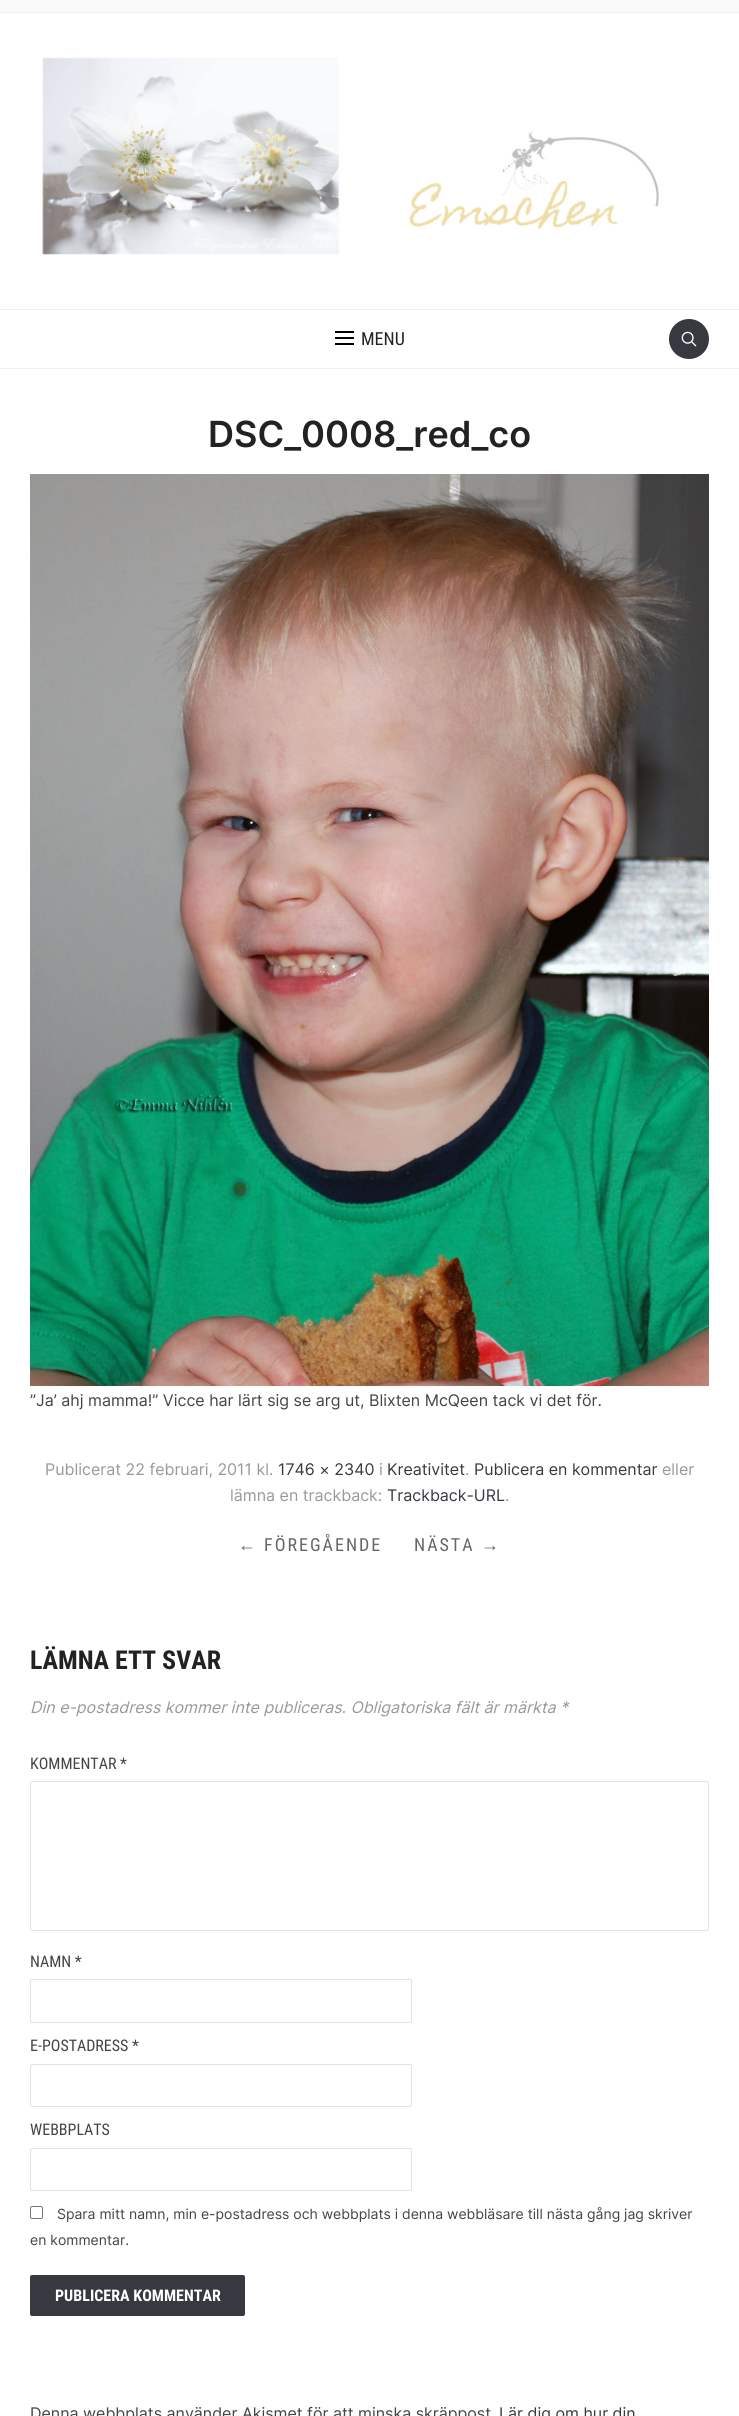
import math
import cairo

surface = cairo.ImageSurface(cairo.Format.RGB24, 739, 2416)
ctx = cairo.Context(surface)
options = cairo.FontOptions()
options.set_hint_metrics(cairo.HintMetrics.OFF)
options.set_hint_style(cairo.HintStyle.NONE)
ctx.set_font_options(options)
ctx.set_miter_limit(4)


def ink(r, g, b):
    ctx.set_source_rgb(r / 255, g / 255, b / 255)


def write(x, y, s, family, size, color, bold=False, italic=False):
    ctx.select_font_face(family, cairo.FontSlant.ITALIC if italic else cairo.FontSlant.NORMAL, cairo.FontWeight.BOLD if bold else cairo.FontWeight.NORMAL)
    ctx.set_font_size(size)
    ink(*color)
    ctx.move_to(x, y)
    ctx.show_text(s)


def write_spaced(x, y, s, letter, word):
    ctx.move_to(x, y)
    for ch in s:
        ctx.show_text(ch)
        ctx.rel_move_to(letter + word * (ch == ' '), 0)


def block(x, y, w, h, *color):
    ink(*color)
    ctx.rectangle(x, y, w, h)
    ctx.fill()


def round_path(x, y, w, h, r):
    ctx.new_sub_path()
    for i, (u, v) in enumerate([(x + w - r, y + h - r), (x + r, y + h - r), (x + r, y + r), (x + w - r, y + r)]):
        ctx.arc(u, v, r, i * math.pi / 2, (i + 1) * math.pi / 2)
    ctx.close_path()


def paste(path, x, y, w, h):
    ctx.save()
    ctx.set_source_surface(cairo.ImageSurface.create_from_png(path), x, y)
    ctx.rectangle(x, y, w, h)
    ctx.fill()
    ctx.restore()


s1 = dict(family="Roboto Condensed", size=18, color=(34, 34, 34))
s2 = dict(family="Inter SemiBold", size=36, color=(34, 34, 34))
s3 = dict(family="Inter", size=16, color=(68, 68, 68))
s4 = dict(family="Inter", size=16, color=(153, 153, 153))
s5 = dict(family="Inter", size=16, color=(54, 57, 64))
s6 = dict(family="Roboto Condensed", size=26, color=(34, 34, 34), bold=True)
s7 = dict(family="Inter", size=16, color=(153, 153, 153), italic=True)
s8 = dict(family="Roboto Condensed", size=16, color=(68, 68, 68))
s9 = dict(family="Inter", size=14, color=(68, 68, 68))
s10 = dict(family="Roboto Condensed", size=16, color=(255, 255, 255), bold=True)

ink(255, 255, 255)
ctx.paint()
block(0, 0, 739, 12, 250, 250, 250)
block(0, 12, 739, 1, 240, 240, 240)
paste("pic1.png", 42, 57, 617, 198)
block(0, 309, 739, 1, 240, 240, 240)
block(0, 368, 739, 1, 240, 240, 240)
block(335, 331, 19, 2, 0, 0, 0)
block(335, 337, 19, 2, 0, 0, 0)
block(335, 343, 19, 2, 0, 0, 0)
write(361, 345, "MENU", **s1)
ink(54, 57, 64)
ctx.new_path()
ctx.arc(689, 339, 20, 0, 2 * math.pi)
ctx.fill()
paste("pic2.png", 681, 331, 16, 16)
write(208, 447, "DSC_0008_red_co", **s2)
paste("pic3.png", 30, 474, 679, 912)
write(30, 1406, "”Ja’ ahj mamma!” Vicce har lärt sig se arg ut, Blixten McQeen tack vi det för.", **s3)
write(45, 1475, "Publicerat 22 februari, 2011 kl.", **s4)
write(278, 1475, "1746 × 2340", **s5)
write(379, 1475, "i", **s4)
write(387, 1475, "Kreativitet", **s5)
write(465, 1475, ".", **s4)
write(474, 1475, "Publicera en kommentar", **s5)
write(662, 1475, "eller", **s4)
write(230, 1501, "lämna en trackback:", **s4)
write(387, 1501, "Trackback-URL", **s5)
write(505, 1501, ".", **s4)
ctx.select_font_face("Liberation Sans")
ctx.set_font_size(18)
ink(102, 102, 102)
write_spaced(238, 1551, "←", 2, 0)
ctx.select_font_face("Roboto Condensed")
write_spaced(264, 1551, "FÖREGÅENDE", 2, 0)
write_spaced(414, 1551, "NÄSTA", 2, 0)
ctx.select_font_face("Liberation Sans")
write_spaced(481, 1551, "→", 2, 0)
write(30, 1669, "LÄMNA ETT SVAR", **s6)
write(30, 1713, "Din e-postadress kommer inte publiceras. Obligatoriska fält är märkta *", **s7)
write(30, 1769, "KOMMENTAR *", **s8)
round_path(30.5, 1781.5, 678, 149, 1.5)
ink(226, 226, 226)
ctx.set_line_width(1)
ctx.stroke()
write(30, 1967, "NAMN *", **s8)
round_path(30.5, 1979.5, 381, 43, 1.5)
ink(226, 226, 226)
ctx.stroke()
write(30, 2051, "E-POSTADRESS *", **s8)
round_path(30.5, 2064.5, 381, 42, 1.5)
ink(226, 226, 226)
ctx.stroke()
write(30, 2135, "WEBBPLATS", **s8)
round_path(30.5, 2148.5, 381, 42, 1.5)
ink(226, 226, 226)
ctx.stroke()
round_path(30.5, 2206.5, 12, 12, 1.5)
ink(118, 118, 118)
ctx.stroke()
write(57, 2219, "Spara mitt namn, min e-postadress och webbplats i denna webbläsare till nästa gång jag skriver", **s9)
write(30, 2245, "en kommentar.", **s9)
ink(54, 57, 64)
round_path(30, 2275, 215, 41, 2)
ctx.fill()
write(55, 2301, "PUBLICERA KOMMENTAR", **s10)
write(30, 2419, "Denna webbplats använder Akismet för att minska skräppost", **s3)
write(499, 2419, "Lär dig om hur din", **s5)
surface.write_to_png("screenshot.png")
